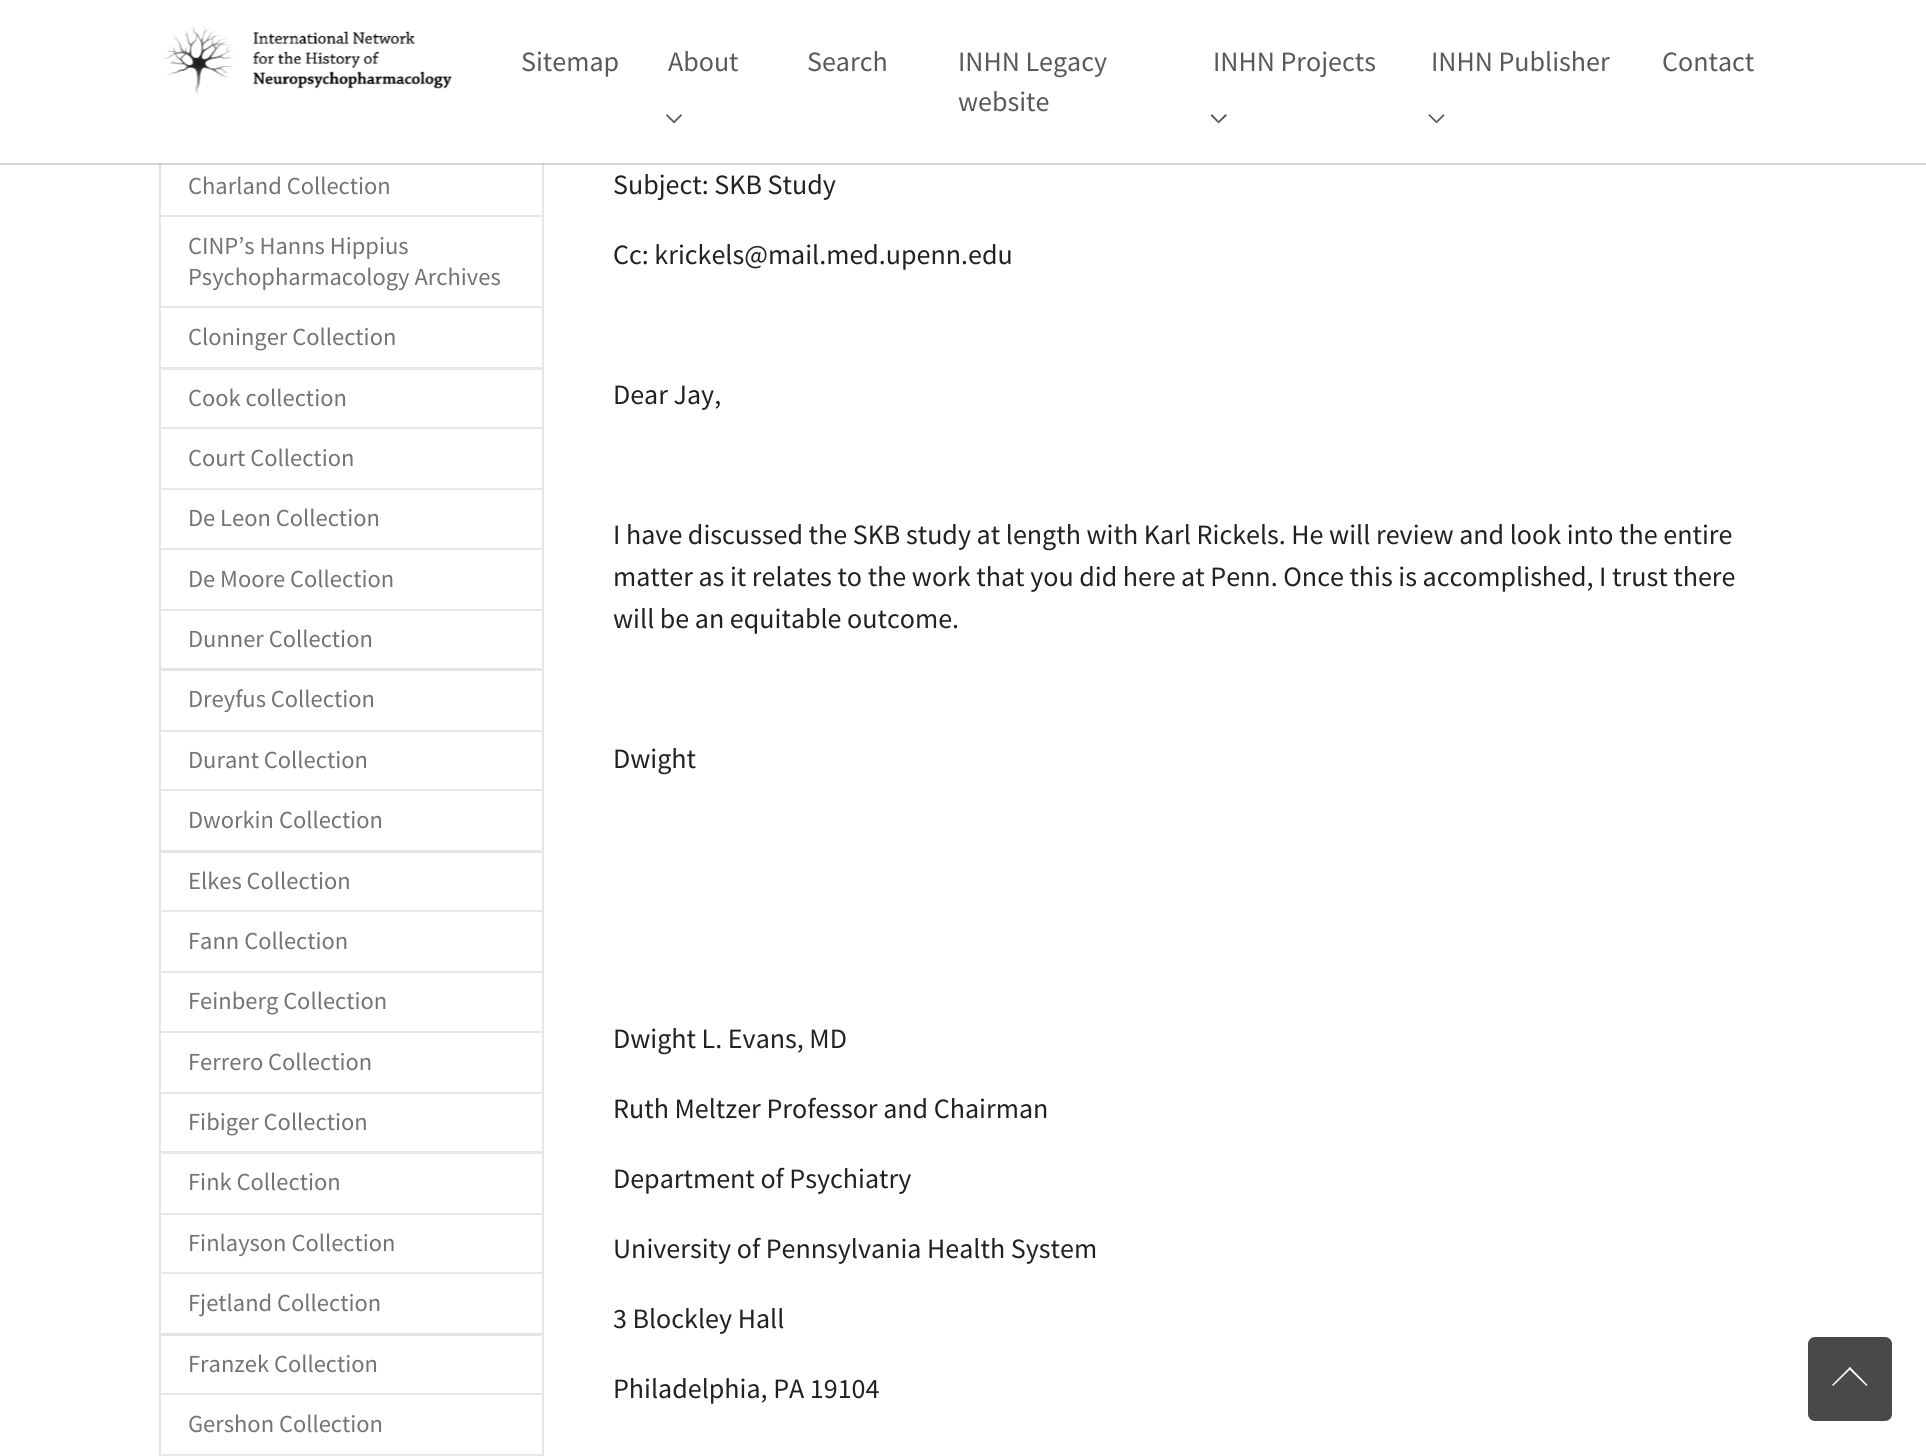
import math
import cairo

surface = cairo.ImageSurface(cairo.Format.RGB24, 1926, 1456)
ctx = cairo.Context(surface)
options = cairo.FontOptions()
options.set_hint_metrics(cairo.HintMetrics.OFF)
options.set_hint_style(cairo.HintStyle.NONE)
ctx.set_font_options(options)
ctx.set_miter_limit(4)


def ink(r, g, b):
    ctx.set_source_rgb(r / 255, g / 255, b / 255)


def write(x, y, s, family, size, color, bold=False, italic=False):
    ctx.select_font_face(family, cairo.FontSlant.ITALIC if italic else cairo.FontSlant.NORMAL, cairo.FontWeight.BOLD if bold else cairo.FontWeight.NORMAL)
    ctx.set_font_size(size)
    ink(*color)
    ctx.move_to(x, y)
    ctx.show_text(s)


def block(x, y, w, h, *color):
    ink(*color)
    ctx.rectangle(x, y, w, h)
    ctx.fill()


def round_path(x, y, w, h, r):
    ctx.new_sub_path()
    for i, (u, v) in enumerate([(x + w - r, y + h - r), (x + r, y + h - r), (x + r, y + r), (x + w - r, y + r)]):
        ctx.arc(u, v, r, i * math.pi / 2, (i + 1) * math.pi / 2)
    ctx.close_path()


def paste(path, x, y, w, h):
    ctx.save()
    ctx.set_source_surface(cairo.ImageSurface.create_from_png(path), x, y)
    ctx.rectangle(x, y, w, h)
    ctx.fill()
    ctx.restore()


s1 = dict(family="Source Sans Pro", size=28, color=(89, 89, 89))
s2 = dict(family="Source Sans Pro", size=24.5, color=(115, 115, 115))
s3 = dict(family="Source Sans Pro", size=28, color=(33, 33, 33))

ink(255, 255, 255)
ctx.paint()
ctx.rectangle(160, 157, 383, 59)
ink(230, 230, 230)
ctx.stroke()
ctx.set_source_rgba(0, 0, 0, 0.15)
ctx.new_path()
ctx.move_to(0, 163)
ctx.line_to(0, 165)
ctx.line_to(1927, 165)
ctx.line_to(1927, 2)
ctx.line_to(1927, 163)
ctx.close_path()
ctx.fill()
block(159, 156, 385, 7, 255, 255, 255)
paste("pic1.png", 162, 25, 290, 71)
write(521, 71, "Sitemap", **s1)
write(668, 71, "About", **s1)
ctx.new_path()
ctx.move_to(674, 123.5)
ctx.line_to(666, 115.5)
ctx.line_to(667, 114)
ctx.line_to(674, 121)
ctx.close_path()
ctx.move_to(682, 115.5)
ctx.line_to(674, 123.5)
ctx.line_to(674, 121)
ctx.line_to(681, 114)
ctx.close_path()
ctx.fill()
write(807, 71, "Search", **s1)
write(958, 71, "INHN Legacy", **s1)
write(958, 111, "website", **s1)
write(1213, 71, "INHN Projects", **s1)
ctx.new_path()
ctx.move_to(1218.5, 123.5)
ctx.line_to(1210.5, 115.5)
ctx.line_to(1212, 114)
ctx.line_to(1218.5, 121)
ctx.close_path()
ctx.fill()
ctx.set_source_rgba(0, 0, 0, 0.65)
ctx.new_path()
ctx.move_to(1227, 115.5)
ctx.line_to(1218.5, 123.5)
ctx.line_to(1218.5, 121)
ctx.line_to(1225.5, 114)
ctx.close_path()
ctx.fill()
write(1431, 71, "INHN Publisher", **s1)
ctx.new_path()
ctx.move_to(1436.5, 123.5)
ctx.line_to(1428.5, 115.5)
ctx.line_to(1429.5, 114)
ctx.line_to(1436.5, 121)
ctx.close_path()
ctx.fill()
ctx.set_source_rgba(0, 0, 0, 0.65)
ctx.new_path()
ctx.move_to(1444.5, 115.5)
ctx.line_to(1436.5, 123.5)
ctx.line_to(1436.5, 121)
ctx.line_to(1443.5, 114)
ctx.close_path()
ctx.fill()
write(1662, 71, "Contact", **s1)
write(188, 194, "Charland Collection", **s2)
ctx.rectangle(160, 216, 383, 91)
ink(230, 230, 230)
ctx.stroke()
write(188, 254, "CINP’s Hanns Hippius", **s2)
write(188, 285, "Psychopharmacology Archives", **s2)
ctx.rectangle(160, 307, 383, 61)
ink(230, 230, 230)
ctx.stroke()
write(188, 345, "Cloninger Collection", **s2)
ctx.rectangle(160, 369, 383, 59)
ink(230, 230, 230)
ctx.stroke()
write(188, 406, "Cook collection", **s2)
ctx.rectangle(160, 428, 383, 61)
ink(230, 230, 230)
ctx.stroke()
write(188, 466, "Court Collection", **s2)
ctx.rectangle(160, 489, 383, 60)
ink(230, 230, 230)
ctx.stroke()
write(188, 526, "De Leon Collection", **s2)
ctx.rectangle(160, 549, 383, 61)
ink(230, 230, 230)
ctx.stroke()
write(188, 587, "De Moore Collection", **s2)
ctx.rectangle(160, 610, 383, 59)
ink(230, 230, 230)
ctx.stroke()
write(188, 647, "Dunner Collection", **s2)
ctx.rectangle(160, 670, 383, 61)
ink(230, 230, 230)
ctx.stroke()
write(188, 707, "Dreyfus Collection", **s2)
ctx.rectangle(160, 731, 383, 59)
ink(230, 230, 230)
ctx.stroke()
write(188, 768, "Durant Collection", **s2)
ctx.rectangle(160, 790, 383, 61)
ink(230, 230, 230)
ctx.stroke()
write(188, 828, "Dworkin Collection", **s2)
ctx.rectangle(160, 852, 383, 59)
ink(230, 230, 230)
ctx.stroke()
write(188, 889, "Elkes Collection", **s2)
ctx.rectangle(160, 911, 383, 61)
ink(230, 230, 230)
ctx.stroke()
write(188, 949, "Fann Collection", **s2)
ctx.rectangle(160, 972, 383, 60)
ink(230, 230, 230)
ctx.stroke()
write(188, 1009, "Feinberg Collection", **s2)
ctx.rectangle(160, 1032, 383, 61)
ink(230, 230, 230)
ctx.stroke()
write(188, 1070, "Ferrero Collection", **s2)
ctx.rectangle(160, 1093, 383, 59)
ink(230, 230, 230)
ctx.stroke()
write(188, 1130, "Fibiger Collection", **s2)
ctx.rectangle(160, 1153, 383, 61)
ink(230, 230, 230)
ctx.stroke()
write(188, 1190, "Fink Collection", **s2)
ctx.rectangle(160, 1214, 383, 59)
ink(230, 230, 230)
ctx.stroke()
write(188, 1251, "Finlayson Collection", **s2)
ctx.rectangle(160, 1273, 383, 61)
ink(230, 230, 230)
ctx.stroke()
write(188, 1311, "Fjetland Collection", **s2)
ctx.rectangle(160, 1335, 383, 59)
ink(230, 230, 230)
ctx.stroke()
write(188, 1372, "Franzek Collection", **s2)
ctx.rectangle(160, 1394, 383, 61)
ink(230, 230, 230)
ctx.stroke()
write(188, 1432, "Gershon Collection", **s2)
write(613, 194, "Subject: SKB Study", **s3)
write(613, 264, "Cc: krickels@mail.med.upenn.edu", **s3)
write(613, 404, "Dear Jay,", **s3)
write(613, 544, "I have discussed the SKB study at length with Karl Rickels. He will review and look into the entire", **s3)
write(613, 586, "matter as it relates to the work that you did here at Penn. Once this is accomplished, I trust there", **s3)
write(613, 628, "will be an equitable outcome.", **s3)
write(613, 768, "Dwight", **s3)
write(613, 1048, "Dwight L. Evans, MD", **s3)
write(613, 1118, "Ruth Meltzer Professor and Chairman", **s3)
write(613, 1188, "Department of Psychiatry", **s3)
write(613, 1258, "University of Pennsylvania Health System", **s3)
write(613, 1328, "3 Blockley Hall", **s3)
write(613, 1398, "Philadelphia, PA 19104", **s3)
ink(73, 73, 73)
round_path(1808, 1337, 84, 84, 7)
ctx.fill()
ink(255, 255, 255)
ctx.new_path()
ctx.move_to(1850, 1367)
ctx.line_to(1867.5, 1385)
ctx.line_to(1866.5, 1386)
ctx.line_to(1848.5, 1368.5)
ctx.close_path()
ctx.fill()
ctx.new_path()
ctx.move_to(1850, 1367)
ctx.line_to(1851, 1368.5)
ctx.line_to(1833, 1386)
ctx.line_to(1832, 1385)
ctx.close_path()
ctx.fill()
surface.write_to_png("screenshot.png")
